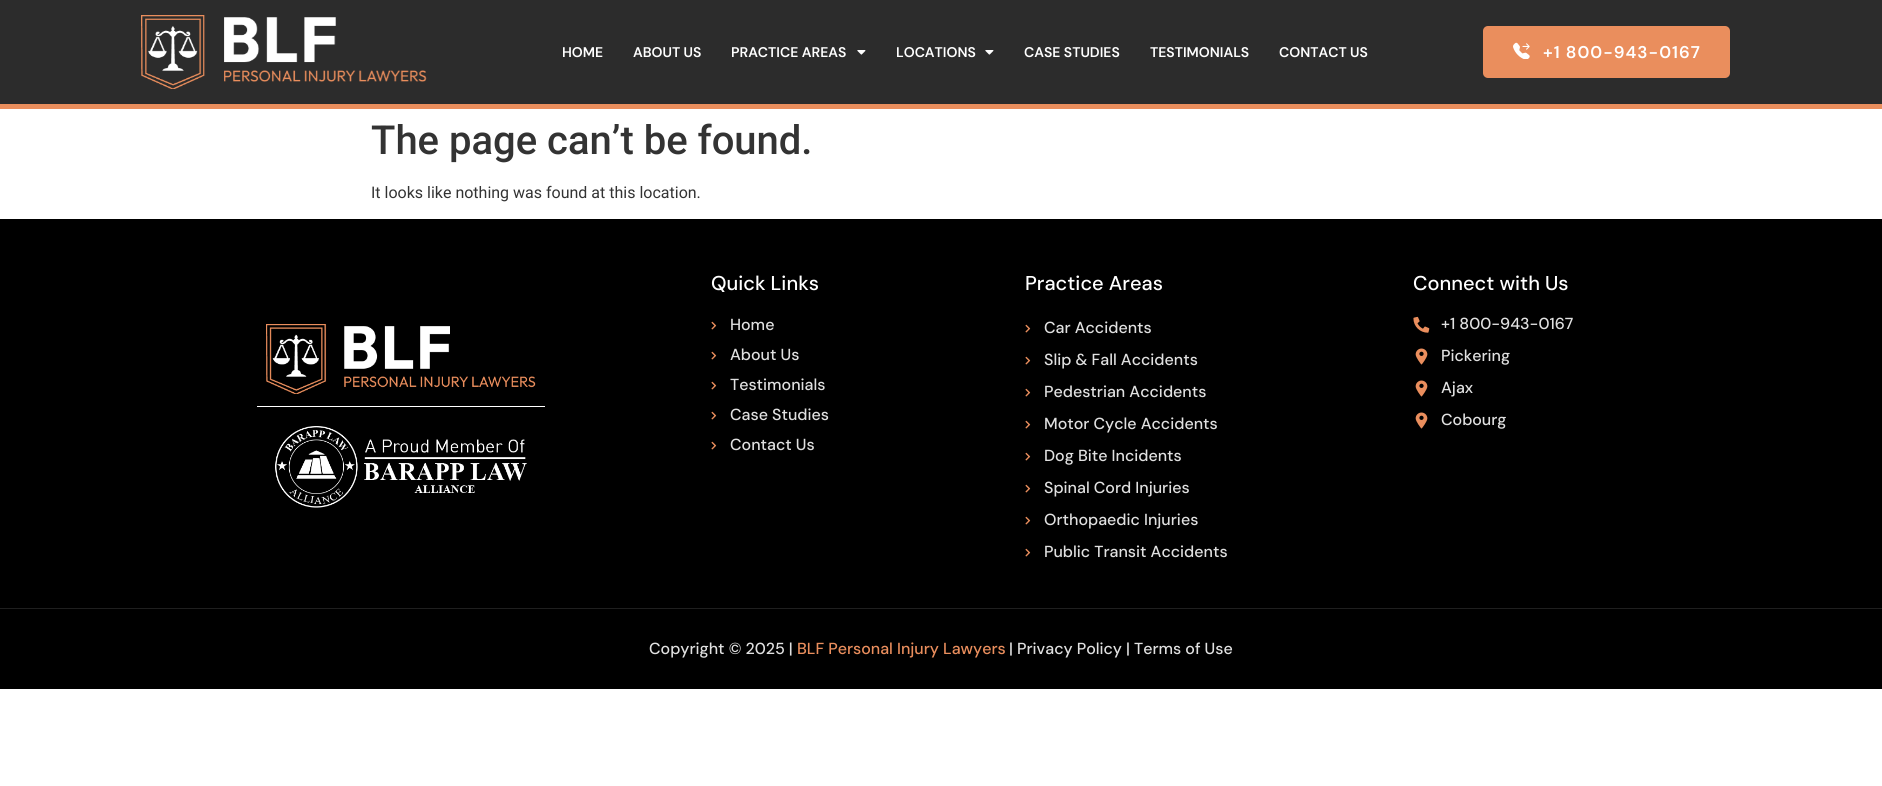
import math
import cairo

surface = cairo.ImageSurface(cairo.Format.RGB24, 1882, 786)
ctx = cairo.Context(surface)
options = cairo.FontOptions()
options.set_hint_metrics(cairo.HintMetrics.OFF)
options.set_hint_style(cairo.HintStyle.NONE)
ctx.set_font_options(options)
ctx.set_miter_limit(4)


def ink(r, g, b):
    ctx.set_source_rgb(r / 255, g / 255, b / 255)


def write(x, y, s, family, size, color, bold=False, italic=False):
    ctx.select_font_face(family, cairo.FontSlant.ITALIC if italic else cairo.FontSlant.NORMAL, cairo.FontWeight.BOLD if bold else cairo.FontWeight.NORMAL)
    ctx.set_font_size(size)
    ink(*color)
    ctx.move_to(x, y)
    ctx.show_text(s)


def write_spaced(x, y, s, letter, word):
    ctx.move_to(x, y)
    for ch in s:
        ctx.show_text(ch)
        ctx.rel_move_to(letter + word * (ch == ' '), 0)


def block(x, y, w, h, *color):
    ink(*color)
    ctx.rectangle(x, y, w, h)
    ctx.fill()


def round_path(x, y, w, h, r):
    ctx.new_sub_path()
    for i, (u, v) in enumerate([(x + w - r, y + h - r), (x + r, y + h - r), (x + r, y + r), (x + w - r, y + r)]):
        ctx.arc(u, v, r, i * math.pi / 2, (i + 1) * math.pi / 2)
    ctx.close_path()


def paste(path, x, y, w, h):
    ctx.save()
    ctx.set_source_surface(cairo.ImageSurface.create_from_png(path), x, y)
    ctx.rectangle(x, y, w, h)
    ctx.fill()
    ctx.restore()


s1 = dict(family="DM Sans SemiBold", size=14, color=(255, 255, 255))
s2 = dict(family="Roboto Medium", size=40, color=(51, 51, 51))
s3 = dict(family="Roboto", size=16, color=(51, 51, 51))
s4 = dict(family="DM Sans Medium", size=20, color=(255, 255, 255))
s5 = dict(family="DM Sans Medium", size=16, color=(224, 224, 224))
s6 = dict(family="DM Sans Medium", size=16, color=(234, 142, 93))

ink(255, 255, 255)
ctx.paint()
block(0, 0, 1882, 104, 44, 44, 44)
block(0, 104, 1882, 5, 234, 142, 93)
paste("pic1.png", 141, 15, 286, 74)
write(562, 57, "HOME", **s1)
write(633, 57, "ABOUT US", **s1)
write(731, 57, "PRACTICE AREAS", **s1)
paste("pic2.png", 857, 50, 9, 5)
write(896, 57, "LOCATIONS", **s1)
paste("pic2.png", 985, 50, 9, 5)
write(1024, 57, "CASE STUDIES", **s1)
write(1150, 57, "TESTIMONIALS", **s1)
write(1279, 57, "CONTACT US", **s1)
ink(234, 142, 93)
round_path(1483, 26, 247, 52, 5)
ctx.fill()
paste("pic3.png", 1513, 42, 17, 17)
ctx.set_font_size(17)
ink(255, 255, 255)
write_spaced(1543, 58, "+1 800-943-0167", 1, 0)
write(371, 154, "The page can’t be found.", **s2)
write(371, 198, "It looks like nothing was found at this location.", **s3)
block(0, 219, 1882, 389, 0, 0, 0)
paste("pic4.png", 266, 324, 270, 70)
block(257, 406, 288, 1, 255, 255, 255)
paste("pic5.png", 275, 426, 252, 82)
write(711, 290, "Quick Links", **s4)
paste("pic6.png", 711, 321, 6, 9)
write(730, 330, "Home", **s5)
paste("pic6.png", 711, 351, 6, 9)
write(730, 360, "About Us", **s5)
paste("pic6.png", 711, 381, 6, 9)
write(730, 390, "Testimonials", **s5)
paste("pic6.png", 711, 411, 6, 9)
write(730, 420, "Case Studies", **s5)
paste("pic6.png", 711, 441, 6, 9)
write(730, 450, "Contact Us", **s5)
write(1025, 290, "Practice Areas", **s4)
paste("pic6.png", 1025, 324, 6, 9)
write(1044, 333, "Car Accidents", **s5)
paste("pic6.png", 1025, 356, 6, 9)
write(1044, 365, "Slip & Fall Accidents", **s5)
paste("pic6.png", 1025, 388, 6, 9)
write(1044, 397, "Pedestrian Accidents", **s5)
paste("pic6.png", 1025, 420, 6, 9)
write(1044, 429, "Motor Cycle Accidents", **s5)
paste("pic6.png", 1025, 452, 6, 9)
write(1044, 461, "Dog Bite Incidents", **s5)
paste("pic6.png", 1025, 484, 6, 9)
write(1044, 493, "Spinal Cord Injuries", **s5)
paste("pic6.png", 1025, 516, 6, 9)
write(1044, 525, "Orthopaedic Injuries", **s5)
paste("pic6.png", 1025, 548, 6, 9)
write(1044, 557, "Public Transit Accidents", **s5)
write(1413, 290, "Connect with Us", **s4)
paste("pic7.png", 1413, 316, 17, 17)
write(1441, 329, "+1 800-943-0167", **s5)
paste("pic8.png", 1415, 348, 13, 17)
write(1441, 361, "Pickering", **s5)
paste("pic8.png", 1415, 380, 13, 17)
write(1441, 393, "Ajax", **s5)
paste("pic8.png", 1415, 412, 13, 17)
write(1441, 425, "Cobourg", **s5)
block(0, 609, 1882, 80, 0, 0, 0)
block(0, 608, 1882, 1, 31, 31, 31)
write(649, 654, "Copyright © 2025 |", **s5)
write(797, 654, "BLF Personal Injury Lawyers", **s6)
write(1009, 654, "| Privacy Policy", **s5)
write(1126, 654, "| Terms of Use", **s5)
surface.write_to_png("screenshot.png")
